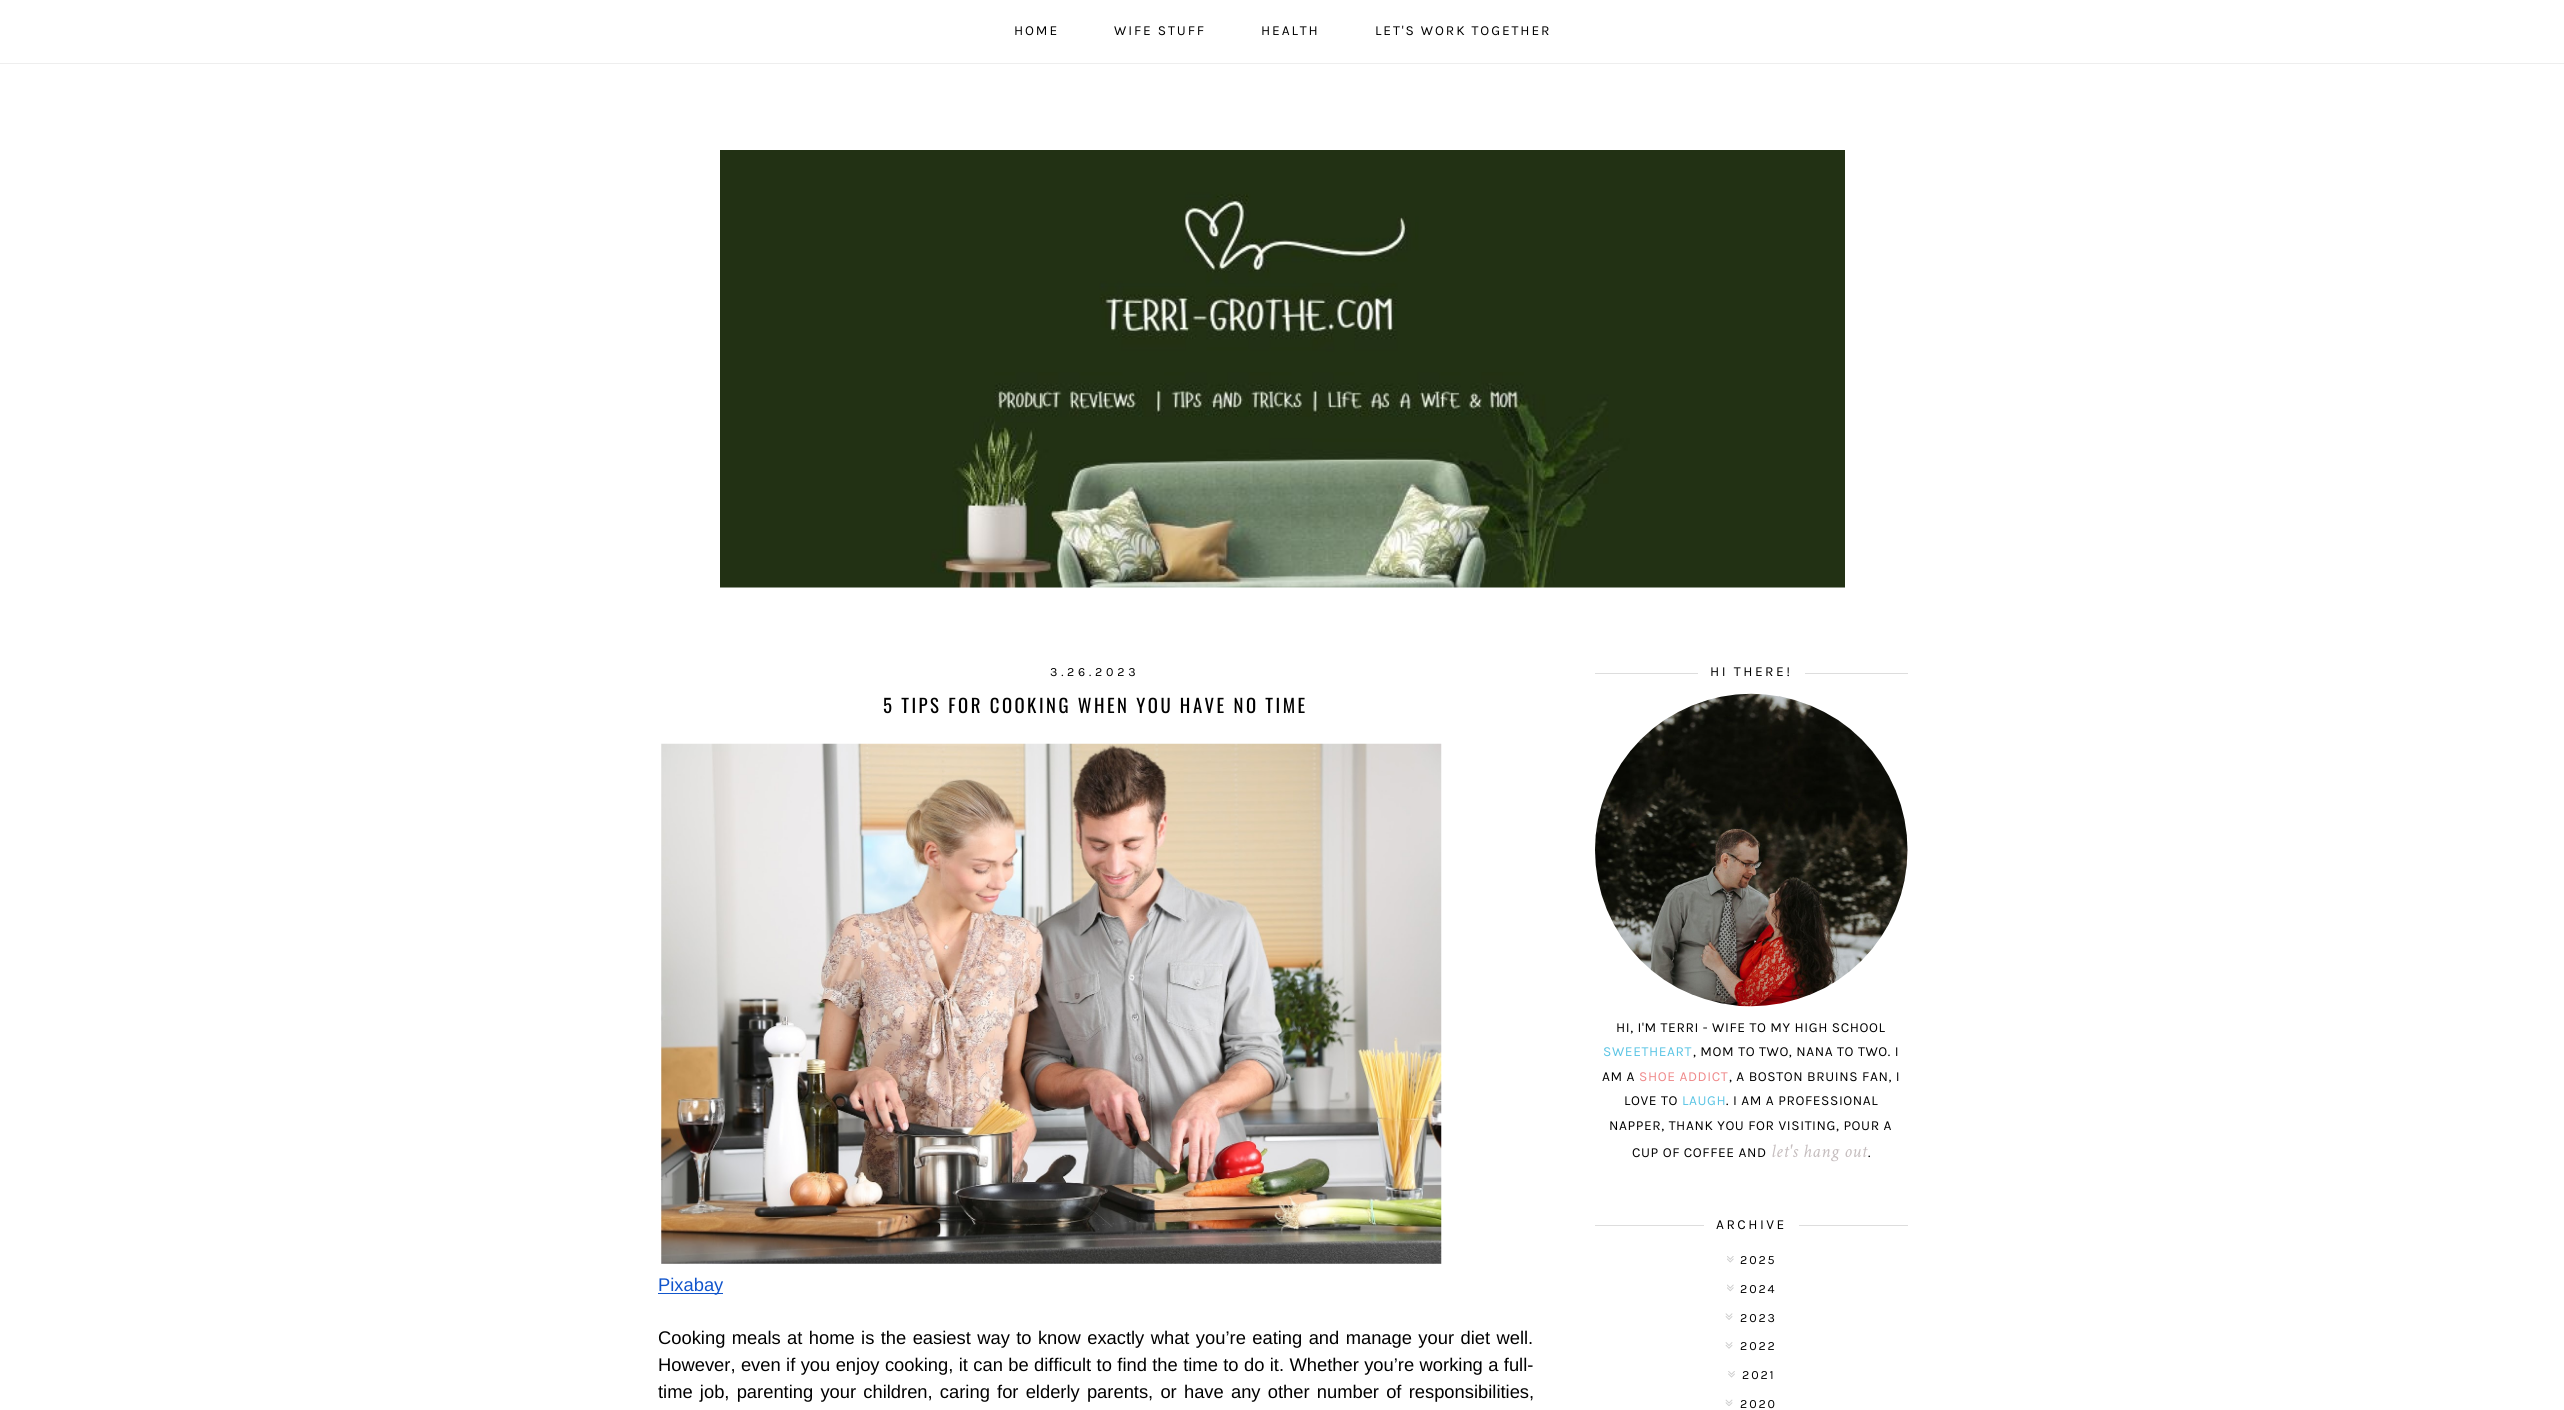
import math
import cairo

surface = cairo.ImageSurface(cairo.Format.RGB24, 2564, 1410)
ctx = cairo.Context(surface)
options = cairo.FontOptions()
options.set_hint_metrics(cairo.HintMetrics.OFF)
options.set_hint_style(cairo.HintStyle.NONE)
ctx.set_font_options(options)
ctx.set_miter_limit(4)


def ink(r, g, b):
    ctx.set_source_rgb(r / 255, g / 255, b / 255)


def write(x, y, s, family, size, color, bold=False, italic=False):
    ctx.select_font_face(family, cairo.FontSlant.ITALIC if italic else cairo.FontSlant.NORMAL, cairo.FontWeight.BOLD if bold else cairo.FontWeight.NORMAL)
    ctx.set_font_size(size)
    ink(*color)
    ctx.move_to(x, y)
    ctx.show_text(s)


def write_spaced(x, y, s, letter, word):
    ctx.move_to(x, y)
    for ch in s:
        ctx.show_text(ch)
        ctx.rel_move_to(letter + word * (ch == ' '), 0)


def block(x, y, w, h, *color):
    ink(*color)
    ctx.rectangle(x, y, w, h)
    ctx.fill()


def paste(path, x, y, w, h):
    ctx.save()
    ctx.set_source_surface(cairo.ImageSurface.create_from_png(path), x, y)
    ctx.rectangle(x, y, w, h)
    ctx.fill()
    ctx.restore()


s1 = dict(family="Liberation Sans", size=18.35, color=(17, 85, 204))

ink(255, 255, 255)
ctx.paint()
block(0, 63, 2564, 1, 238, 238, 238)
ctx.select_font_face("Karla")
ctx.set_font_size(13.75)
ink(0, 0, 0)
write_spaced(1014, 35, "HOME", 1.9, 0)
write_spaced(1114, 35, "WIFE STUFF", 1.9, 0)
write_spaced(1261, 35, "HEALTH", 1.9, 0)
write_spaced(1375, 35, "LET'S WORK TOGETHER", 1.9, 0)
paste("pic1.png", 720, 150, 1125, 438)
ctx.set_font_size(12.5)
write_spaced(1050, 676, "3.26.2023", 3.75, 0)
ctx.select_font_face("Oswald")
ctx.set_font_size(18.75)
write_spaced(883, 713, "5 TIPS FOR COOKING WHEN YOU HAVE NO TIME", 2.5, 0)
paste("pic2.png", 661, 743, 781, 521)
block(658, 1293, 65, 1, 17, 85, 204)
write(658, 1291, "Pixabay", **s1)
ink(0, 0, 0)
write_spaced(658, 1344, "Cooking meals at home is the easiest way to know exactly what you’re eating and manage your diet well.", 0, 1.3)
write_spaced(658, 1371, "However, even if you enjoy cooking, it can be difficult to find the time to do it. Whether you’re working a full-", 0, 0.3)
write_spaced(658, 1398, "time job, parenting your children, caring for elderly parents, or have any other number of responsibilities,", 0, 2.1)
block(1595, 673, 313, 1, 221, 221, 221)
block(1698, 673, 107, 1, 255, 255, 255)
ctx.select_font_face("Karla")
ctx.set_font_size(13.75)
ink(0, 0, 0)
write_spaced(1710, 676, "HI THERE!", 2.5, 0)
paste("pic3.png", 1595, 693, 313, 314)
write_spaced(1616, 1032, "HI, I'M TERRI - WIFE TO MY HIGH SCHOOL", 0.6, 0)
ink(90, 196, 228)
write_spaced(1603, 1056, "SWEETHEART", 0.6, 0)
ink(0, 0, 0)
write_spaced(1693, 1056, ", MOM TO TWO, NANA TO TWO. I", 0.6, 0)
write_spaced(1602, 1081, "AM A", 0.6, 0)
ink(239, 137, 138)
write_spaced(1639, 1081, "SHOE ADDICT", 0.6, 0)
ink(0, 0, 0)
write_spaced(1729, 1081, ", A BOSTON BRUINS FAN, I", 0.6, 0)
write_spaced(1624, 1105, "LOVE TO", 0.6, 0)
ink(90, 196, 228)
write_spaced(1682, 1105, "LAUGH", 0.6, 0)
ink(0, 0, 0)
write_spaced(1726, 1105, ". I AM A PROFESSIONAL", 0.6, 0)
write_spaced(1609, 1130, "NAPPER, THANK YOU FOR VISITING, POUR A", 0.6, 0)
write_spaced(1632, 1157, "CUP OF COFFEE AND", 0.6, 0)
ctx.select_font_face("Crimson Text", cairo.FontSlant.ITALIC)
ctx.set_font_size(18.75)
ink(198, 190, 191)
write_spaced(1771, 1157, "let's hang out", 0.6, 0)
ctx.select_font_face("Karla")
ctx.set_font_size(13.75)
ink(0, 0, 0)
write_spaced(1868, 1157, ".", 0.6, 0)
block(1595, 1225, 313, 1, 221, 221, 221)
block(1704, 1225, 95, 1, 255, 255, 255)
ink(0, 0, 0)
write_spaced(1716, 1229, "ARCHIVE", 2.5, 0)
paste("pic4.png", 1727, 1256, 7, 7)
ctx.set_font_size(12.5)
write_spaced(1740, 1264, "2025", 1.9, 0)
paste("pic5.png", 1727, 1284, 7, 8)
write_spaced(1740, 1293, "2024", 1.9, 0)
paste("pic6.png", 1725, 1313, 8, 7)
write_spaced(1740, 1322, "2023", 1.9, 0)
paste("pic7.png", 1725, 1342, 8, 7)
write_spaced(1740, 1350, "2022", 1.9, 0)
paste("pic8.png", 1728, 1371, 7, 7)
write_spaced(1742, 1379, "2021", 1.9, 0)
paste("pic9.png", 1725, 1399, 8, 7)
write_spaced(1740, 1408, "2020", 1.9, 0)
surface.write_to_png("screenshot.png")
